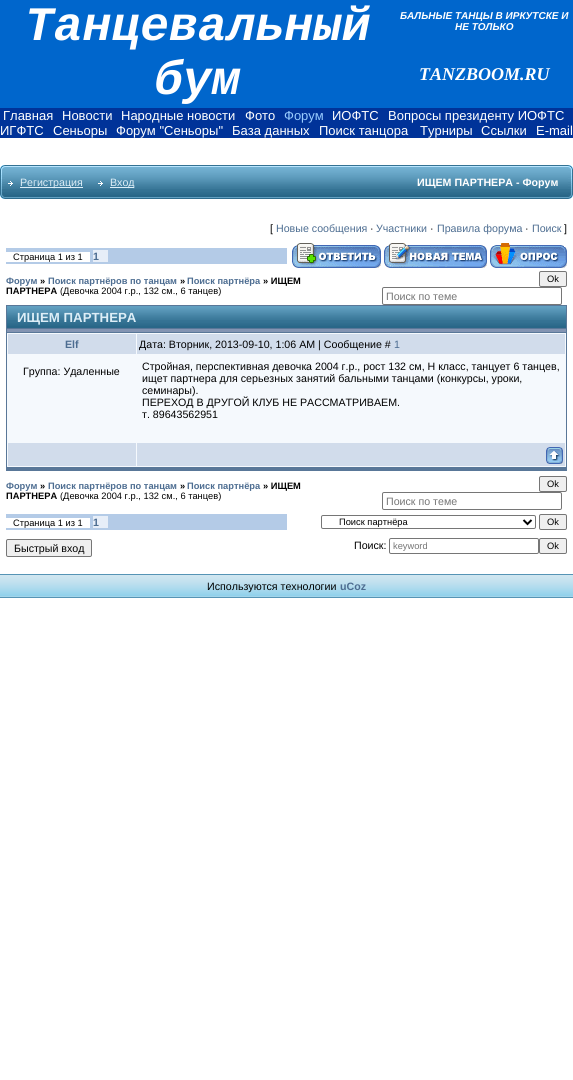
import math
import cairo

surface = cairo.ImageSurface(cairo.Format.RGB24, 573, 1080)
ctx = cairo.Context(surface)
options = cairo.FontOptions()
options.set_hint_metrics(cairo.HintMetrics.OFF)
options.set_hint_style(cairo.HintStyle.NONE)
ctx.set_font_options(options)
ctx.set_miter_limit(4)


def ink(r, g, b):
    ctx.set_source_rgb(r / 255, g / 255, b / 255)


def write(x, y, s, family, size, color, bold=False, italic=False):
    ctx.select_font_face(family, cairo.FontSlant.ITALIC if italic else cairo.FontSlant.NORMAL, cairo.FontWeight.BOLD if bold else cairo.FontWeight.NORMAL)
    ctx.set_font_size(size)
    ink(*color)
    ctx.move_to(x, y)
    ctx.show_text(s)


def block(x, y, w, h, *color):
    ink(*color)
    ctx.rectangle(x, y, w, h)
    ctx.fill()


def round_path(x, y, w, h, r):
    ctx.new_sub_path()
    for i, (u, v) in enumerate([(x + w - r, y + h - r), (x + r, y + h - r), (x + r, y + r), (x + w - r, y + r)]):
        ctx.arc(u, v, r, i * math.pi / 2, (i + 1) * math.pi / 2)
    ctx.close_path()


def paste(path, x, y, w, h):
    ctx.save()
    ctx.set_source_surface(cairo.ImageSurface.create_from_png(path), x, y)
    ctx.rectangle(x, y, w, h)
    ctx.fill()
    ctx.restore()


s1 = dict(family="Liberation Mono", size=48, color=(255, 255, 255), bold=True, italic=True)
s2 = dict(family="Liberation Sans", size=10, color=(255, 255, 255), bold=True, italic=True)
s3 = dict(family="Liberation Serif", size=18, color=(255, 255, 255), bold=True, italic=True)
s4 = dict(family="Liberation Sans", size=13, color=(255, 255, 255))
s5 = dict(family="Liberation Sans", size=13, color=(153, 204, 255))
s6 = dict(family="Liberation Sans", size=10.65, color=(221, 238, 247))
s7 = dict(family="Liberation Sans", size=10.65, color=(255, 255, 255), bold=True)
s8 = dict(family="Liberation Sans", size=10.65, color=(0, 0, 0))
s9 = dict(family="Liberation Sans", size=10.65, color=(77, 109, 145))
s10 = dict(family="Liberation Sans", size=9.3, color=(0, 0, 0))
s11 = dict(family="Liberation Sans", size=10.65, color=(77, 109, 145), bold=True)
s12 = dict(family="Liberation Sans", size=9.3, color=(77, 109, 145), bold=True)
s13 = dict(family="Liberation Sans", size=9.3, color=(0, 0, 0), bold=True)
s14 = dict(family="Liberation Sans", size=10.65, color=(117, 117, 117))
s15 = dict(family="Liberation Sans", size=13.25, color=(221, 238, 247), bold=True)
s16 = dict(family="Liberation Sans", size=9.3, color=(117, 117, 117))

ink(255, 255, 255)
ctx.paint()
block(0, 0, 395, 108, 0, 102, 204)
write(25, 40, "Танцевальный", **s1)
write(154, 94, "бум", **s1)
block(395, 0, 178, 108, 0, 102, 204)
write(400, 19, "БАЛЬНЫЕ ТАНЦЫ В ИРКУТСКЕ И", **s2)
write(455, 30, "НЕ ТОЛЬКО", **s2)
write(419, 80, "TANZBOOM.RU", **s3)
block(0, 108, 573, 30, 0, 51, 153)
write(3, 120, "Главная", **s4)
write(62, 120, "Новости", **s4)
write(121, 120, "Народные новости", **s4)
write(245, 120, "Фото", **s4)
write(284, 120, "Форум", **s5)
write(332, 120, "ИОФТС", **s4)
write(388, 120, "Вопросы президенту ИОФТС", **s4)
write(0, 135, "ИГФТС", **s4)
write(53, 135, "Сеньоры", **s4)
write(116, 135, "Форум \"Сеньоры\"", **s4)
write(232, 135, "База данных", **s4)
write(319, 135, "Поиск танцора", **s4)
write(420, 135, "Турниры", **s4)
write(481, 135, "Ссылки", **s4)
write(536, 135, "E-mail", **s4)
paste("pic1.png", 0, 165, 5, 34)
paste("pic2.png", 5, 165, 391, 34)
paste("pic3.png", 8, 181, 5, 5)
block(20, 187, 63, 1, 221, 238, 247)
write(20, 186, "Регистрация", **s6)
paste("pic3.png", 98, 181, 5, 5)
block(110, 187, 24, 1, 221, 238, 247)
write(110, 186, "Вход", **s6)
paste("pic4.png", 396, 165, 172, 34)
write(417, 186, "ИЩЕМ ПАРТНЕРА - Форум", **s7)
paste("pic5.png", 568, 165, 5, 34)
write(270, 232, "[", **s8)
write(276, 232, "Новые сообщения", **s9)
write(370, 232, "·", **s8)
write(376, 232, "Участники", **s9)
write(430, 232, "·", **s8)
write(437, 232, "Правила форума", **s9)
write(525, 232, "·", **s8)
write(532, 232, "Поиск", **s9)
write(564, 232, "]", **s8)
block(6, 248, 281, 16, 180, 203, 231)
block(6, 252, 84, 10, 255, 255, 255)
write(13, 260, "Страница 1 из 1", **s10)
block(93, 250, 15, 12, 231, 238, 248)
write(93, 260, "1", **s11)
paste("pic6.png", 292, 243, 89, 25)
paste("pic7.png", 384, 243, 103, 25)
paste("pic8.png", 490, 243, 77, 25)
write(6, 284, "Форум", **s12)
write(40, 284, "»", **s13)
write(48, 284, "Поиск партнёров по танцам", **s12)
write(180, 284, "»", **s13)
write(187, 284, "Поиск партнёра", **s12)
write(263, 284, "» ИЩЕМ", **s13)
write(6, 294, "ПАРТНЕРА", **s13)
write(60, 294, "(Девочка 2004 г.р., 132 см., 6 танцев)", **s10)
ink(239, 239, 239)
round_path(539.5, 271.5, 27, 15, 1.5)
ctx.fill_preserve()
ink(118, 118, 118)
ctx.set_line_width(1)
ctx.stroke()
write(547, 282, "Ok", **s10)
round_path(382.5, 287.5, 179, 17, 1.5)
ink(118, 118, 118)
ctx.stroke()
write(386, 300, "Поиск по теме", **s14)
block(6, 305, 561, 166, 89, 119, 152)
paste("pic9.png", 7, 306, 559, 22)
write(17, 322, "ИЩЕМ ПАРТНЕРА", **s15)
block(7, 329, 559, 3, 131, 148, 178)
block(7, 333, 559, 134, 245, 249, 253)
block(8, 334, 128, 20, 209, 220, 235)
write(65, 348, "Elf", **s11)
block(137, 334, 428, 20, 209, 220, 235)
write(139, 348, "Дата: Вторник, 2013-09-10, 1:06 AM | Сообщение #", **s8)
write(394, 348, "1", **s9)
write(23, 375, "Группа: Удаленные", **s8)
write(142, 370, "Стройная, перспективная девочка 2004 г.р., рост 132 см, Н класс, танцует 6 танцев,", **s8)
write(142, 382, "ищет партнера для серьезных занятий бальными танцами (конкурсы, уроки,", **s8)
write(142, 394, "семинары).", **s8)
write(142, 406, "ПЕРЕХОД В ДРУГОЙ КЛУБ НЕ РАССМАТРИВАЕМ.", **s8)
write(142, 418, "т. 89643562951", **s8)
block(8, 443, 128, 23, 209, 220, 235)
block(137, 443, 428, 23, 209, 220, 235)
paste("pic10.png", 546, 447, 17, 17)
write(6, 489, "Форум", **s12)
write(40, 489, "»", **s13)
write(48, 489, "Поиск партнёров по танцам", **s12)
write(180, 489, "»", **s13)
write(187, 489, "Поиск партнёра", **s12)
write(263, 489, "» ИЩЕМ", **s13)
write(6, 499, "ПАРТНЕРА", **s13)
write(60, 499, "(Девочка 2004 г.р., 132 см., 6 танцев)", **s10)
ink(239, 239, 239)
round_path(539.5, 476.5, 27, 15, 1.5)
ctx.fill_preserve()
ink(118, 118, 118)
ctx.stroke()
write(547, 487, "Ok", **s10)
round_path(382.5, 492.5, 179, 17, 1.5)
ink(118, 118, 118)
ctx.stroke()
write(386, 505, "Поиск по теме", **s14)
block(6, 514, 281, 16, 180, 203, 231)
block(6, 518, 84, 10, 255, 255, 255)
write(13, 526, "Страница 1 из 1", **s10)
block(93, 516, 15, 12, 231, 238, 248)
write(93, 526, "1", **s11)
round_path(321.5, 515.5, 214, 13, 1.5)
ink(118, 118, 118)
ctx.stroke()
ctx.new_path()
ctx.move_to(523.5, 520)
ctx.line_to(527.5, 524)
ctx.line_to(531.5, 520)
ink(0, 0, 0)
ctx.set_line_width(2)
ctx.stroke()
write(339, 525, "Поиск партнёра", **s10)
ink(239, 239, 239)
round_path(539.5, 514.5, 27, 15, 1.5)
ctx.fill_preserve()
ink(118, 118, 118)
ctx.set_line_width(1)
ctx.stroke()
write(547, 525, "Ok", **s10)
ink(239, 239, 239)
round_path(6.5, 539.5, 85, 17, 1.5)
ctx.fill_preserve()
ink(118, 118, 118)
ctx.stroke()
write(14, 552, "Быстрый вход", **s8)
write(354, 549, "Поиск:", **s8)
round_path(389.5, 538.5, 149, 15, 1.5)
ink(118, 118, 118)
ctx.stroke()
write(393, 549, "keyword", **s16)
ink(239, 239, 239)
round_path(539.5, 538.5, 27, 15, 1.5)
ctx.fill_preserve()
ink(118, 118, 118)
ctx.stroke()
write(547, 549, "Ok", **s10)
paste("pic11.png", 0, 574, 573, 24)
write(207, 590, "Используются технологии", **s8)
write(340, 590, "uCoz", **s11)
surface.write_to_png("screenshot.png")
